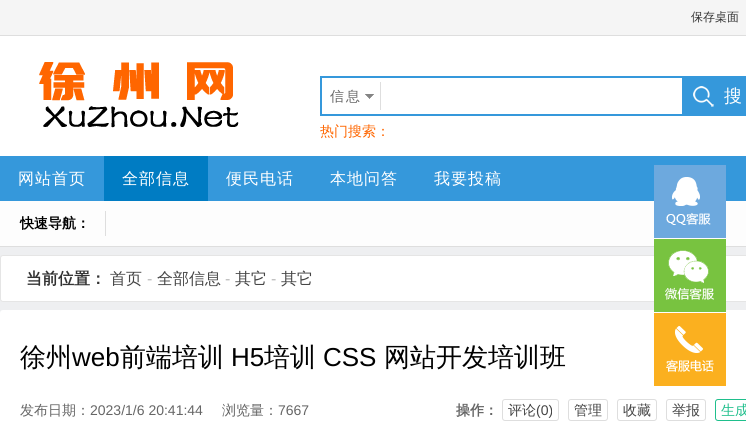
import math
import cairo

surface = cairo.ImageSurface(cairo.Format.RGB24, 746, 427)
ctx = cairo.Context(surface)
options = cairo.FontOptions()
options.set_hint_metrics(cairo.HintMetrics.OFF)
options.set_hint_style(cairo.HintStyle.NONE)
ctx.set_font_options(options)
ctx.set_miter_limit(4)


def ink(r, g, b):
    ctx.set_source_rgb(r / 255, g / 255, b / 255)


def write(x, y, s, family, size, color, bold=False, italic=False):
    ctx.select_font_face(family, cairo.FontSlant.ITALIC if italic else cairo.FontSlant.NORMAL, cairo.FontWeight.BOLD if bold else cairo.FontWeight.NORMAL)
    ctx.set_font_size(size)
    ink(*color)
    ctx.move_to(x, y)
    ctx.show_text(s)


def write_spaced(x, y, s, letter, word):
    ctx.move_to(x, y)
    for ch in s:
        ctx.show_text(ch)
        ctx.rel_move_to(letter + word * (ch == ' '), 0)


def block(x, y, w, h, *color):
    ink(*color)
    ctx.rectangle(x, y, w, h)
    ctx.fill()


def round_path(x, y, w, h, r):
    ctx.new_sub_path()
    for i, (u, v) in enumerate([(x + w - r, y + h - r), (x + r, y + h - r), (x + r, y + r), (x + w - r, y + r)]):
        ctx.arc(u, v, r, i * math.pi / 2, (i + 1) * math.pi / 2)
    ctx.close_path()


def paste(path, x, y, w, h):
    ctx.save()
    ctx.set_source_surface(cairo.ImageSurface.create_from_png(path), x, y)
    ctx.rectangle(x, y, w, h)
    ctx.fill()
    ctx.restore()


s1 = dict(family="WenQuanYi Zen Hei Medium", size=12, color=(51, 51, 51))
s2 = dict(family="WenQuanYi Zen Hei Medium", size=18, color=(255, 255, 255))
s3 = dict(family="WenQuanYi Zen Hei Medium", size=14, color=(255, 102, 0))
s4 = dict(family="WenQuanYi Zen Hei", size=14, color=(0, 0, 0), bold=True)
s5 = dict(family="WenQuanYi Zen Hei", size=16, color=(51, 51, 51), bold=True)
s6 = dict(family="WenQuanYi Zen Hei Medium", size=16, color=(68, 68, 68))
s7 = dict(family="Liberation Sans", size=16, color=(186, 186, 186))
s8 = dict(family="WenQuanYi Zen Hei Medium", size=26, color=(0, 0, 0))
s9 = dict(family="Liberation Sans", size=26, color=(0, 0, 0))
s10 = dict(family="WenQuanYi Zen Hei Medium", size=14, color=(102, 102, 102))
s11 = dict(family="Liberation Sans", size=14, color=(102, 102, 102))
s12 = dict(family="WenQuanYi Zen Hei", size=14, color=(102, 102, 102), bold=True)
s13 = dict(family="WenQuanYi Zen Hei Medium", size=14, color=(68, 68, 68))
s14 = dict(family="Liberation Sans", size=14, color=(68, 68, 68))
s15 = dict(family="WenQuanYi Zen Hei Medium", size=14, color=(31, 191, 140))

ink(238, 239, 241)
ctx.paint()
block(0, 0, 746, 35, 245, 245, 245)
block(0, 35, 746, 1, 222, 222, 222)
write(691, 21, "保存桌面", **s1)
block(0, 36, 746, 120, 255, 255, 255)
paste("pic1.png", 39, 62, 200, 66)
ctx.rectangle(321, 77, 362, 38)
ink(53, 152, 219)
ctx.stroke()
paste("pic2.png", 365, 94, 9, 5)
block(380, 82, 1, 28, 222, 222, 222)
ctx.set_font_size(14)
ink(102, 102, 102)
write_spaced(330, 101, "信息", 2, 0)
block(684, 76, 62, 40, 53, 152, 219)
paste("pic3.png", 693, 86, 21, 21)
write(724, 102, "搜", **s2)
write(320, 136, "热门搜索：", **s3)
block(0, 156, 746, 45, 53, 152, 219)
ctx.set_font_size(16)
ink(255, 255, 255)
write_spaced(18, 184, "网站首页", 1, 0)
block(104, 156, 104, 45, 0, 124, 195)
ink(255, 255, 255)
write_spaced(122, 184, "全部信息", 1, 0)
write_spaced(226, 184, "便民电话", 1, 0)
write_spaced(330, 184, "本地问答", 1, 0)
write_spaced(434, 184, "我要投稿", 1, 0)
block(0, 201, 746, 45, 253, 253, 253)
block(0, 246, 746, 1, 222, 222, 222)
block(105, 211, 1, 25, 222, 222, 222)
write(20, 228, "快速导航：", **s4)
block(654, 165, 72, 73, 109, 169, 222)
paste("pic4.png", 666, 177, 45, 48)
ink(255, 255, 255)
round_path(0.5, 255.5, 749, 46, 2.5)
ctx.fill_preserve()
ink(229, 229, 229)
ctx.set_line_width(1)
ctx.stroke()
ink(255, 255, 255)
round_path(0, 310, 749, 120, 3)
ctx.fill()
block(654, 239, 72, 73, 120, 195, 64)
paste("pic5.png", 665, 250, 49, 50)
block(654, 313, 72, 73, 251, 176, 31)
paste("pic6.png", 666, 326, 48, 46)
write(26, 284, "当前位置：", **s5)
write(110, 284, "首页", **s6)
write(147, 284, "-", **s7)
write(157, 284, "全部信息", **s6)
write(225, 284, "-", **s7)
write(235, 284, "其它", **s6)
write(271, 284, "-", **s7)
write(281, 284, "其它", **s6)
write(20, 366, "徐州", **s8)
write(72, 366, "web", **s9)
write(120, 366, "前端培训", **s8)
write(231, 366, "H5", **s9)
write(264, 366, "培训", **s8)
write(323, 366, "CSS", **s9)
write(384, 366, "网站开发培训班", **s8)
write(20, 415, "发布日期：", **s10)
write(90, 415, "2023/1/6 20:41:44", **s11)
write(222, 415, "浏览量：", **s10)
write(278, 415, "7667", **s11)
write(456, 415, "操作：", **s12)
round_path(502.5, 399.5, 56, 21, 2.5)
ink(222, 222, 222)
ctx.stroke()
write(508, 415, "评论", **s13)
write(536, 415, "(0)", **s14)
round_path(568.5, 399.5, 39, 21, 2.5)
ink(222, 222, 222)
ctx.stroke()
write(574, 415, "管理", **s13)
round_path(617.5, 399.5, 39, 21, 2.5)
ink(222, 222, 222)
ctx.stroke()
write(623, 415, "收藏", **s13)
round_path(666.5, 399.5, 39, 21, 2.5)
ink(222, 222, 222)
ctx.stroke()
write(672, 415, "举报", **s13)
round_path(715.5, 399.5, 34, 21, 2.5)
ink(31, 191, 140)
ctx.stroke()
write(721, 415, "生成", **s15)
surface.write_to_png("screenshot.png")
